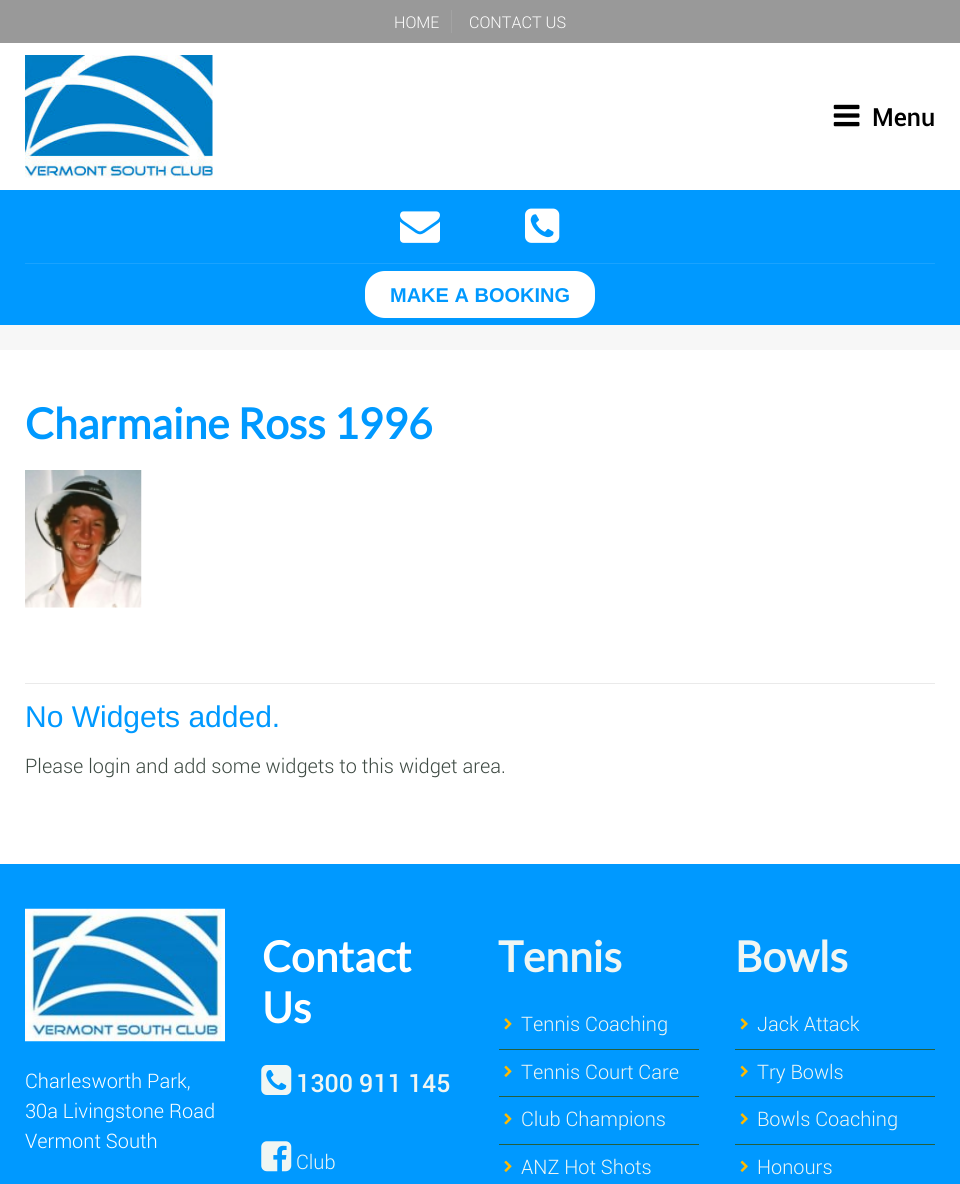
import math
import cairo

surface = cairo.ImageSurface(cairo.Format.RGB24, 960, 1184)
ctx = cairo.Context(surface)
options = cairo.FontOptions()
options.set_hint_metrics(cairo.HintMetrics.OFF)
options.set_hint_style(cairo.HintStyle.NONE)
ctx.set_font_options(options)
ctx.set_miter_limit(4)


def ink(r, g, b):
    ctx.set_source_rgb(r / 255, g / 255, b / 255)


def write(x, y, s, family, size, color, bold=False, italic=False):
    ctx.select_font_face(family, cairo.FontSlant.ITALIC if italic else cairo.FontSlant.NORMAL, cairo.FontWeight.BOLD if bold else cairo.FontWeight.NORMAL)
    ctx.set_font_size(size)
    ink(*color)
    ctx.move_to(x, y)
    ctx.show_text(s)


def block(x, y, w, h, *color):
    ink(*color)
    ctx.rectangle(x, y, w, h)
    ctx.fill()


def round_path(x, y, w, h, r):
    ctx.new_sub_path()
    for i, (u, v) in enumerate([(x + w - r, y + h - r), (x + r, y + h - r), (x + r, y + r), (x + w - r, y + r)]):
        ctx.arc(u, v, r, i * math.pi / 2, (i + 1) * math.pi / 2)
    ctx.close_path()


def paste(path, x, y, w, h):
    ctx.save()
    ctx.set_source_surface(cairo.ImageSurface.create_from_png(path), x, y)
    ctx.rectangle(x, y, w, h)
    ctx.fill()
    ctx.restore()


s1 = dict(family="Roboto Light", size=16.25, color=(255, 255, 255))
s2 = dict(family="Roboto Medium", size=25, color=(0, 0, 0))
s3 = dict(family="Liberation Sans", size=20, color=(0, 153, 255), bold=True)
s4 = dict(family="Lato", size=42.5, color=(0, 153, 255), bold=True)
s5 = dict(family="Liberation Sans", size=30, color=(0, 153, 255))
s6 = dict(family="Roboto Light", size=20, color=(61, 73, 66))
s7 = dict(family="Roboto Light", size=20, color=(255, 255, 255))
s8 = dict(family="Lato", size=42.5, color=(255, 255, 255), bold=True)
s9 = dict(family="Roboto Medium", size=25, color=(240, 246, 243))
s10 = dict(family="Roboto Light", size=20, color=(240, 246, 243))
s11 = dict(family="Lato", size=42.5, color=(240, 246, 243), bold=True)

ink(153, 153, 153)
ctx.paint()
write(394, 28, "HOME", **s1)
block(451, 10, 1, 23, 163, 163, 163)
write(469, 28, "CONTACT US", **s1)
block(0, 43, 960, 147, 255, 255, 255)
paste("pic1.png", 25, 55, 188, 123)
paste("pic2.png", 833, 104, 27, 23)
write(872, 126, "Menu", **s2)
block(0, 190, 960, 135, 0, 153, 255)
paste("pic3.png", 400, 211, 40, 32)
paste("pic4.png", 525, 208, 35, 35)
block(25, 263, 910, 1, 26, 163, 255)
ink(255, 255, 255)
round_path(365, 271, 230, 47, 20)
ctx.fill()
write(390, 302, "MAKE A BOOKING", **s3)
block(0, 325, 960, 25, 247, 247, 247)
block(0, 350, 960, 514, 255, 255, 255)
write(25, 439, "Charmaine Ross 1996", **s4)
paste("pic5.png", 25, 470, 117, 138)
block(25, 683, 910, 1, 234, 234, 234)
write(25, 727, "No Widgets added.", **s5)
write(25, 773, "Please login and add some widgets to this widget area.", **s6)
block(0, 864, 960, 320, 0, 153, 255)
paste("pic6.png", 25, 908, 200, 134)
write(25, 1088, "Charlesworth Park,", **s7)
write(25, 1118, "30a Livingstone Road", **s7)
write(25, 1148, "Vermont South", **s7)
write(262, 972, "Contact", **s8)
write(262, 1023, "Us", **s8)
paste("pic7.png", 261, 1065, 31, 30)
write(296, 1092, "1300 911 145", **s9)
paste("pic8.png", 261, 1141, 31, 31)
write(296, 1169, "Club", **s10)
write(498, 972, "Tennis", **s11)
block(499, 1049, 200, 1, 37, 95, 63)
paste("pic9.png", 504, 1018, 8, 12)
write(521, 1031, "Tennis Coaching", **s10)
block(499, 1096, 200, 1, 37, 95, 63)
paste("pic10.png", 504, 1065, 8, 12)
write(521, 1079, "Tennis Court Care", **s10)
block(499, 1144, 200, 1, 37, 95, 63)
paste("pic9.png", 504, 1113, 8, 12)
write(521, 1126, "Club Champions", **s10)
paste("pic10.png", 504, 1160, 8, 12)
write(521, 1174, "ANZ Hot Shots", **s10)
write(735, 972, "Bowls", **s11)
block(735, 1049, 200, 1, 37, 95, 63)
paste("pic11.png", 740, 1018, 8, 12)
write(757, 1031, "Jack Attack", **s10)
block(735, 1096, 200, 1, 37, 95, 63)
paste("pic12.png", 740, 1065, 8, 12)
write(757, 1079, "Try Bowls", **s10)
block(735, 1144, 200, 1, 37, 95, 63)
paste("pic11.png", 740, 1113, 8, 12)
write(757, 1126, "Bowls Coaching", **s10)
paste("pic12.png", 740, 1160, 8, 12)
write(757, 1174, "Honours", **s10)
surface.write_to_png("screenshot.png")
